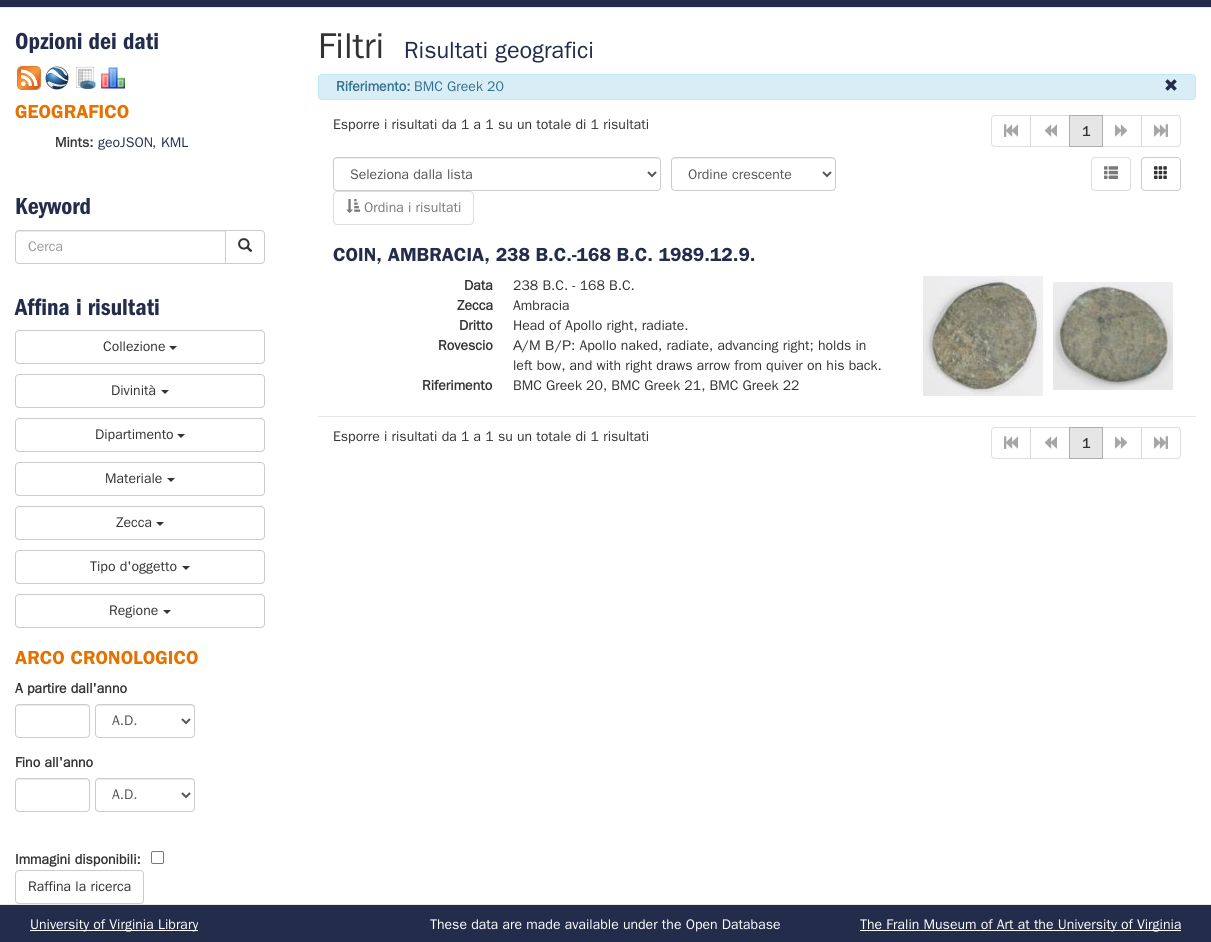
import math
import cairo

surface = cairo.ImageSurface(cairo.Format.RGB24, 1211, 942)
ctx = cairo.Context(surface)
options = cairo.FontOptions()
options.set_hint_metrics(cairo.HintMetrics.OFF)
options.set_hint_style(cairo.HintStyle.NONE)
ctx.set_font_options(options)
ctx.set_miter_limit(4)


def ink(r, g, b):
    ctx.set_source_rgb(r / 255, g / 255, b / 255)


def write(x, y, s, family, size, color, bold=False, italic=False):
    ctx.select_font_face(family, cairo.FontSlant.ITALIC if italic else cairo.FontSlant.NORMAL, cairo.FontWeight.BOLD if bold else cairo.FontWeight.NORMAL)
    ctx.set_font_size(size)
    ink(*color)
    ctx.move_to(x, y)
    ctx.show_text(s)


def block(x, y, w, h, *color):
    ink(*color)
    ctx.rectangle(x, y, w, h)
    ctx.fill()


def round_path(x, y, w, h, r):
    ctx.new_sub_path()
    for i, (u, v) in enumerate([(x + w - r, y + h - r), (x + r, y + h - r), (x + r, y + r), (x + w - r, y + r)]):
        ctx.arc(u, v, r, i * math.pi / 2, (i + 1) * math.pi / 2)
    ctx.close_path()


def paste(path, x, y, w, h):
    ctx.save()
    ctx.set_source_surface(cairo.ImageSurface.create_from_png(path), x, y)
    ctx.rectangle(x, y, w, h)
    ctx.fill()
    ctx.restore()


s1 = dict(family="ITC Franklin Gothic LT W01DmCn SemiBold", size=24, color=(35, 45, 75))
s2 = dict(family="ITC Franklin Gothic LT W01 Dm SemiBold", size=19, color=(229, 114, 0))
s3 = dict(family="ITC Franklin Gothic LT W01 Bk", size=14, color=(51, 51, 51), bold=True)
s4 = dict(family="ITC Franklin Gothic LT W01 Bk", size=14, color=(35, 45, 75))
s5 = dict(family="ITC Franklin Gothic LT W01 Bk", size=14, color=(51, 51, 51))
s6 = dict(family="ITC Franklin Gothic LT W01 Bk", size=14, color=(153, 153, 153))
s7 = dict(family="ITC Franklin Gothic LT W01 Bk", size=14, color=(85, 85, 85))
s8 = dict(family="ITC Franklin Gothic LT W01 Bk", size=36, color=(51, 51, 51))
s9 = dict(family="ITC Franklin Gothic LT W01 Bk", size=23.5, color=(35, 45, 75))
s10 = dict(family="ITC Franklin Gothic LT W01 Bk", size=14, color=(49, 112, 143), bold=True)
s11 = dict(family="ITC Franklin Gothic LT W01 Bk", size=14, color=(49, 112, 143))
s12 = dict(family="ITC Franklin Gothic LT W01 Bk", size=14, color=(122, 122, 122))
s13 = dict(family="ITC Franklin Gothic LT W01 Dm SemiBold", size=19, color=(35, 45, 75))
s14 = dict(family="Liberation Sans", size=14, color=(51, 51, 51))
s15 = dict(family="ITC Franklin Gothic LT W01 Bk", size=14, color=(255, 255, 255))

ink(255, 255, 255)
ctx.paint()
block(0, 0, 1211, 7, 35, 45, 75)
block(0, 7, 1211, 1, 231, 231, 231)
write(15, 49, "Opzioni dei dati", **s1)
paste("pic1.png", 17, 66, 24, 24)
paste("pic2.png", 45, 66, 24, 24)
paste("pic3.png", 76, 66, 20, 23)
paste("pic4.png", 101, 67, 24, 22)
write(15, 118, "GEOGRAFICO", **s2)
write(55, 147, "Mints:", **s3)
write(98, 147, "geoJSON", **s4)
write(152, 147, ",", **s5)
write(161, 147, "KML", **s4)
write(15, 214, "Keyword", **s1)
ink(236, 236, 236)
ctx.new_path()
ctx.move_to(19, 232)
ctx.line_to(225, 232)
ctx.line_to(225, 231)
ctx.line_to(19, 231)
ctx.curve_to(17, 231, 16, 232, 16, 234)
ctx.line_to(16, 235)
ctx.curve_to(16, 233, 17, 232, 19, 232)
ctx.close_path()
ctx.fill()
ctx.new_path()
ctx.move_to(19, 230.5)
ctx.line_to(225.5, 230.5)
ctx.line_to(225.5, 263.5)
ctx.line_to(19, 263.5)
ctx.curve_to(17, 263.5, 15.5, 262, 15.5, 260)
ctx.line_to(15.5, 234)
ctx.curve_to(15.5, 232, 17, 230.5, 19, 230.5)
ctx.close_path()
ink(204, 204, 204)
ctx.set_line_width(1)
ctx.stroke()
write(28, 251, "Cerca", **s6)
ink(255, 255, 255)
ctx.new_path()
ctx.move_to(225.5, 230.5)
ctx.line_to(261, 230.5)
ctx.curve_to(263, 230.5, 264.5, 232, 264.5, 234)
ctx.line_to(264.5, 260)
ctx.curve_to(264.5, 262, 263, 263.5, 261, 263.5)
ctx.line_to(225.5, 263.5)
ctx.close_path()
ctx.fill_preserve()
ink(204, 204, 204)
ctx.stroke()
paste("pic5.png", 238, 238, 15, 14)
write(15, 315, "Affina i risultati", **s1)
round_path(15.5, 330.5, 249, 33, 3.5)
ink(204, 204, 204)
ctx.stroke()
write(103, 351, "Collezione", **s5)
ctx.new_path()
ctx.move_to(169, 346)
ctx.line_to(177, 346)
ctx.line_to(173, 350)
ctx.close_path()
ctx.fill()
round_path(15.5, 374.5, 249, 33, 3.5)
ink(204, 204, 204)
ctx.stroke()
write(111, 395, "Divinità", **s5)
ctx.new_path()
ctx.move_to(161, 390)
ctx.line_to(169, 390)
ctx.line_to(165, 394)
ctx.close_path()
ctx.fill()
round_path(15.5, 418.5, 249, 33, 3.5)
ink(204, 204, 204)
ctx.stroke()
write(95, 439, "Dipartimento", **s5)
ctx.new_path()
ctx.move_to(177, 434)
ctx.line_to(185, 434)
ctx.line_to(181, 438)
ctx.close_path()
ctx.fill()
round_path(15.5, 462.5, 249, 33, 3.5)
ink(204, 204, 204)
ctx.stroke()
write(105, 483, "Materiale", **s5)
ctx.new_path()
ctx.move_to(167, 478)
ctx.line_to(175, 478)
ctx.line_to(171, 482)
ctx.close_path()
ctx.fill()
round_path(15.5, 506.5, 249, 33, 3.5)
ink(204, 204, 204)
ctx.stroke()
write(116, 527, "Zecca", **s5)
ctx.new_path()
ctx.move_to(156, 522)
ctx.line_to(164, 522)
ctx.line_to(160, 526)
ctx.close_path()
ctx.fill()
round_path(15.5, 550.5, 249, 33, 3.5)
ink(204, 204, 204)
ctx.stroke()
write(90, 571, "Tipo d'oggetto", **s5)
ctx.new_path()
ctx.move_to(182, 566)
ctx.line_to(190, 566)
ctx.line_to(186, 570)
ctx.close_path()
ctx.fill()
round_path(15.5, 594.5, 249, 33, 3.5)
ink(204, 204, 204)
ctx.stroke()
write(109, 615, "Regione", **s5)
ctx.new_path()
ctx.move_to(163, 610)
ctx.line_to(171, 610)
ctx.line_to(167, 614)
ctx.close_path()
ctx.fill()
write(15, 664, "ARCO CRONOLOGICO", **s2)
write(15, 693, "A partire dall'anno", **s3)
ink(236, 236, 236)
ctx.new_path()
ctx.move_to(19, 706)
ctx.line_to(86, 706)
ctx.curve_to(88, 706, 89, 707, 89, 709)
ctx.curve_to(89, 702, 79, 705, 75, 705)
ctx.line_to(30, 705)
ctx.curve_to(26, 705, 16, 702, 16, 709)
ctx.curve_to(16, 707, 17, 706, 19, 706)
ctx.close_path()
ctx.fill()
round_path(15.5, 704.5, 74, 33, 3.5)
ink(204, 204, 204)
ctx.stroke()
ink(236, 236, 236)
ctx.new_path()
ctx.move_to(99, 706)
ctx.line_to(191, 706)
ctx.curve_to(193, 706, 194, 707, 194, 709)
ctx.curve_to(194, 701, 179, 705, 176, 705)
ctx.line_to(114, 705)
ctx.curve_to(111, 705, 96, 701, 96, 709)
ctx.curve_to(96, 707, 97, 706, 99, 706)
ctx.close_path()
ctx.fill()
round_path(95.5, 704.5, 99, 33, 3.5)
ink(204, 204, 204)
ctx.stroke()
ctx.new_path()
ctx.move_to(182, 719)
ctx.line_to(186, 723)
ctx.line_to(190, 719)
ink(85, 85, 85)
ctx.set_line_width(2)
ctx.stroke()
write(112, 725, "A.D.", **s7)
write(15, 767, "Fino all'anno", **s3)
ink(236, 236, 236)
ctx.new_path()
ctx.move_to(19, 780)
ctx.line_to(86, 780)
ctx.curve_to(88, 780, 89, 781, 89, 783)
ctx.curve_to(89, 776, 79, 779, 75, 779)
ctx.line_to(30, 779)
ctx.curve_to(26, 779, 16, 776, 16, 783)
ctx.curve_to(16, 781, 17, 780, 19, 780)
ctx.close_path()
ctx.fill()
round_path(15.5, 778.5, 74, 33, 3.5)
ink(204, 204, 204)
ctx.set_line_width(1)
ctx.stroke()
ink(236, 236, 236)
ctx.new_path()
ctx.move_to(99, 780)
ctx.line_to(191, 780)
ctx.curve_to(193, 780, 194, 781, 194, 783)
ctx.curve_to(194, 775, 179, 779, 176, 779)
ctx.line_to(114, 779)
ctx.curve_to(111, 779, 96, 775, 96, 783)
ctx.curve_to(96, 781, 97, 780, 99, 780)
ctx.close_path()
ctx.fill()
round_path(95.5, 778.5, 99, 33, 3.5)
ink(204, 204, 204)
ctx.stroke()
ctx.new_path()
ctx.move_to(182, 793)
ctx.line_to(186, 797)
ctx.line_to(190, 793)
ink(85, 85, 85)
ctx.set_line_width(2)
ctx.stroke()
write(112, 799, "A.D.", **s7)
write(15, 864, "Immagini disponibili:", **s3)
round_path(151.5, 851.5, 12, 12, 1.5)
ink(118, 118, 118)
ctx.set_line_width(1)
ctx.stroke()
round_path(15.5, 870.5, 128, 33, 3.5)
ink(204, 204, 204)
ctx.stroke()
write(28, 891, "Raffina la ricerca", **s5)
write(318, 58, "Filtri", **s8)
write(404, 58, "Risultati geografici", **s9)
ink(217, 237, 247)
round_path(318.5, 74.5, 877, 25, 3.5)
ctx.fill_preserve()
ink(188, 232, 241)
ctx.stroke()
write(336, 91, "Riferimento:", **s10)
write(414, 91, "BMC Greek 20", **s11)
paste("pic6.png", 1165, 79, 12, 12)
write(333, 129, "Esporre i risultati da 1 a 1 su un totale di 1 risultati", **s5)
ctx.new_path()
ctx.move_to(995, 115.5)
ctx.line_to(1030.5, 115.5)
ctx.line_to(1030.5, 146.5)
ctx.line_to(995, 146.5)
ctx.curve_to(993, 146.5, 991.5, 145, 991.5, 143)
ctx.line_to(991.5, 119)
ctx.curve_to(991.5, 117, 993, 115.5, 995, 115.5)
ctx.close_path()
ink(222, 222, 222)
ctx.stroke()
paste("pic7.png", 1004, 124, 14, 13)
ctx.set_source_rgba(1, 1, 1, 0.65)
ctx.rectangle(1030, 115, 1, 32)
ctx.fill()
ctx.rectangle(1030.5, 115.5, 39, 31)
ctx.set_source_rgba(0.8, 0.8, 0.8, 0.65)
ctx.stroke()
paste("pic8.png", 1044, 124, 13, 13)
ctx.rectangle(1102.5, 115.5, 39, 31)
ink(222, 222, 222)
ctx.stroke()
ink(230, 230, 230)
ctx.rectangle(1069.5, 115.5, 33, 31)
ctx.fill_preserve()
ink(173, 173, 173)
ctx.stroke()
write(1082, 136, "1", **s3)
paste("pic9.png", 1115, 124, 13, 13)
ctx.set_source_rgba(1, 1, 1, 0.65)
ctx.new_path()
ctx.move_to(1141, 115)
ctx.line_to(1177, 115)
ctx.curve_to(1179, 115, 1181, 117, 1181, 119)
ctx.line_to(1181, 143)
ctx.curve_to(1181, 145, 1179, 147, 1177, 147)
ctx.line_to(1141, 147)
ctx.close_path()
ctx.fill()
ctx.new_path()
ctx.move_to(1141.5, 115.5)
ctx.line_to(1177, 115.5)
ctx.curve_to(1179, 115.5, 1180.5, 117, 1180.5, 119)
ctx.line_to(1180.5, 143)
ctx.curve_to(1180.5, 145, 1179, 146.5, 1177, 146.5)
ctx.line_to(1141.5, 146.5)
ctx.close_path()
ctx.set_source_rgba(0.8, 0.8, 0.8, 0.65)
ctx.stroke()
paste("pic10.png", 1154, 124, 14, 13)
ink(236, 236, 236)
ctx.new_path()
ctx.move_to(337, 159)
ctx.line_to(657, 159)
ctx.curve_to(659, 159, 660, 160, 660, 162)
ctx.curve_to(660, 160, 659, 158, 657, 158)
ctx.line_to(337, 158)
ctx.curve_to(335, 158, 334, 160, 334, 162)
ctx.curve_to(334, 160, 335, 159, 337, 159)
ctx.close_path()
ctx.fill()
round_path(333.5, 157.5, 327, 33, 3.5)
ink(204, 204, 204)
ctx.stroke()
ctx.new_path()
ctx.move_to(648, 172)
ctx.line_to(652, 176)
ctx.line_to(656, 172)
ink(85, 85, 85)
ctx.set_line_width(2)
ctx.stroke()
write(350, 179, "Seleziona dalla lista", **s7)
ink(236, 236, 236)
ctx.new_path()
ctx.move_to(675, 159)
ctx.line_to(832, 159)
ctx.curve_to(834, 159, 835, 160, 835, 162)
ctx.curve_to(835, 160, 834, 158, 832, 158)
ctx.line_to(675, 158)
ctx.curve_to(673, 158, 672, 160, 672, 162)
ctx.curve_to(672, 160, 673, 159, 675, 159)
ctx.close_path()
ctx.fill()
round_path(671.5, 157.5, 164, 33, 3.5)
ink(204, 204, 204)
ctx.set_line_width(1)
ctx.stroke()
ctx.new_path()
ctx.move_to(823, 172)
ctx.line_to(827, 176)
ctx.line_to(831, 172)
ink(85, 85, 85)
ctx.set_line_width(2)
ctx.stroke()
write(688, 179, "Ordine crescente", **s7)
round_path(333.5, 191.5, 140, 33, 3.5)
ink(222, 222, 222)
ctx.set_line_width(1)
ctx.stroke()
paste("pic11.png", 346, 199, 15, 14)
write(364, 212, "Ordina i risultati", **s12)
round_path(1091.5, 157.5, 39, 33, 3.5)
ink(222, 222, 222)
ctx.stroke()
paste("pic12.png", 1104, 166, 14, 13)
round_path(1141.5, 157.5, 39, 33, 3.5)
ink(204, 204, 204)
ctx.stroke()
paste("pic13.png", 1154, 166, 13, 13)
block(318, 416, 878, 1, 231, 231, 231)
write(333, 261, "COIN, AMBRACIA, 238 B.C.-168 B.C. 1989.12.9.", **s13)
write(464, 290, "Data", **s3)
write(513, 290, "238 B.C. - 168 B.C.", **s5)
write(457, 310, "Zecca", **s3)
write(513, 310, "Ambracia", **s5)
write(459, 330, "Dritto", **s3)
write(513, 330, "Head of Apollo right, radiate.", **s5)
write(438, 350, "Rovescio", **s3)
write(513, 350, "Α", **s14)
write(522, 350, "/", **s5)
write(529, 350, "Μ", **s14)
write(545, 350, "Β", **s14)
write(555, 350, "/", **s5)
write(562, 350, "Ρ", **s14)
write(571, 350, ": Apollo naked, radiate, advancing right; holds in", **s5)
write(513, 370, "left bow, and with right draws arrow from quiver on his back.", **s5)
write(422, 390, "Riferimento", **s3)
write(513, 390, "BMC Greek 20, BMC Greek 21, BMC Greek 22", **s5)
paste("pic14.png", 923, 276, 120, 120)
paste("pic15.png", 1053, 282, 120, 108)
write(333, 441, "Esporre i risultati da 1 a 1 su un totale di 1 risultati", **s5)
ctx.new_path()
ctx.move_to(995, 427.5)
ctx.line_to(1030.5, 427.5)
ctx.line_to(1030.5, 458.5)
ctx.line_to(995, 458.5)
ctx.curve_to(993, 458.5, 991.5, 457, 991.5, 455)
ctx.line_to(991.5, 431)
ctx.curve_to(991.5, 429, 993, 427.5, 995, 427.5)
ctx.close_path()
ink(222, 222, 222)
ctx.stroke()
paste("pic7.png", 1004, 436, 14, 13)
ctx.set_source_rgba(1, 1, 1, 0.65)
ctx.rectangle(1030, 427, 1, 32)
ctx.fill()
ctx.rectangle(1030.5, 427.5, 39, 31)
ctx.set_source_rgba(0.8, 0.8, 0.8, 0.65)
ctx.stroke()
paste("pic8.png", 1044, 436, 13, 13)
ctx.rectangle(1102.5, 427.5, 39, 31)
ink(222, 222, 222)
ctx.stroke()
ink(230, 230, 230)
ctx.rectangle(1069.5, 427.5, 33, 31)
ctx.fill_preserve()
ink(173, 173, 173)
ctx.stroke()
write(1082, 448, "1", **s3)
paste("pic9.png", 1115, 436, 13, 13)
ctx.set_source_rgba(1, 1, 1, 0.65)
ctx.new_path()
ctx.move_to(1141, 427)
ctx.line_to(1177, 427)
ctx.curve_to(1179, 427, 1181, 429, 1181, 431)
ctx.line_to(1181, 455)
ctx.curve_to(1181, 457, 1179, 459, 1177, 459)
ctx.line_to(1141, 459)
ctx.close_path()
ctx.fill()
ctx.new_path()
ctx.move_to(1141.5, 427.5)
ctx.line_to(1177, 427.5)
ctx.curve_to(1179, 427.5, 1180.5, 429, 1180.5, 431)
ctx.line_to(1180.5, 455)
ctx.curve_to(1180.5, 457, 1179, 458.5, 1177, 458.5)
ctx.line_to(1141.5, 458.5)
ctx.close_path()
ctx.set_source_rgba(0.8, 0.8, 0.8, 0.65)
ctx.stroke()
paste("pic10.png", 1154, 436, 14, 13)
block(0, 905, 1211, 37, 35, 45, 75)
block(0, 904, 1211, 1, 231, 231, 231)
block(30, 930, 168, 1, 255, 255, 255)
write(30, 929, "University of Virginia Library", **s15)
write(430, 929, "These data are made available under the Open Database", **s15)
block(860, 930, 321, 1, 255, 255, 255)
write(860, 929, "The Fralin Museum of Art at the University of Virginia", **s15)
surface.write_to_png("screenshot.png")
